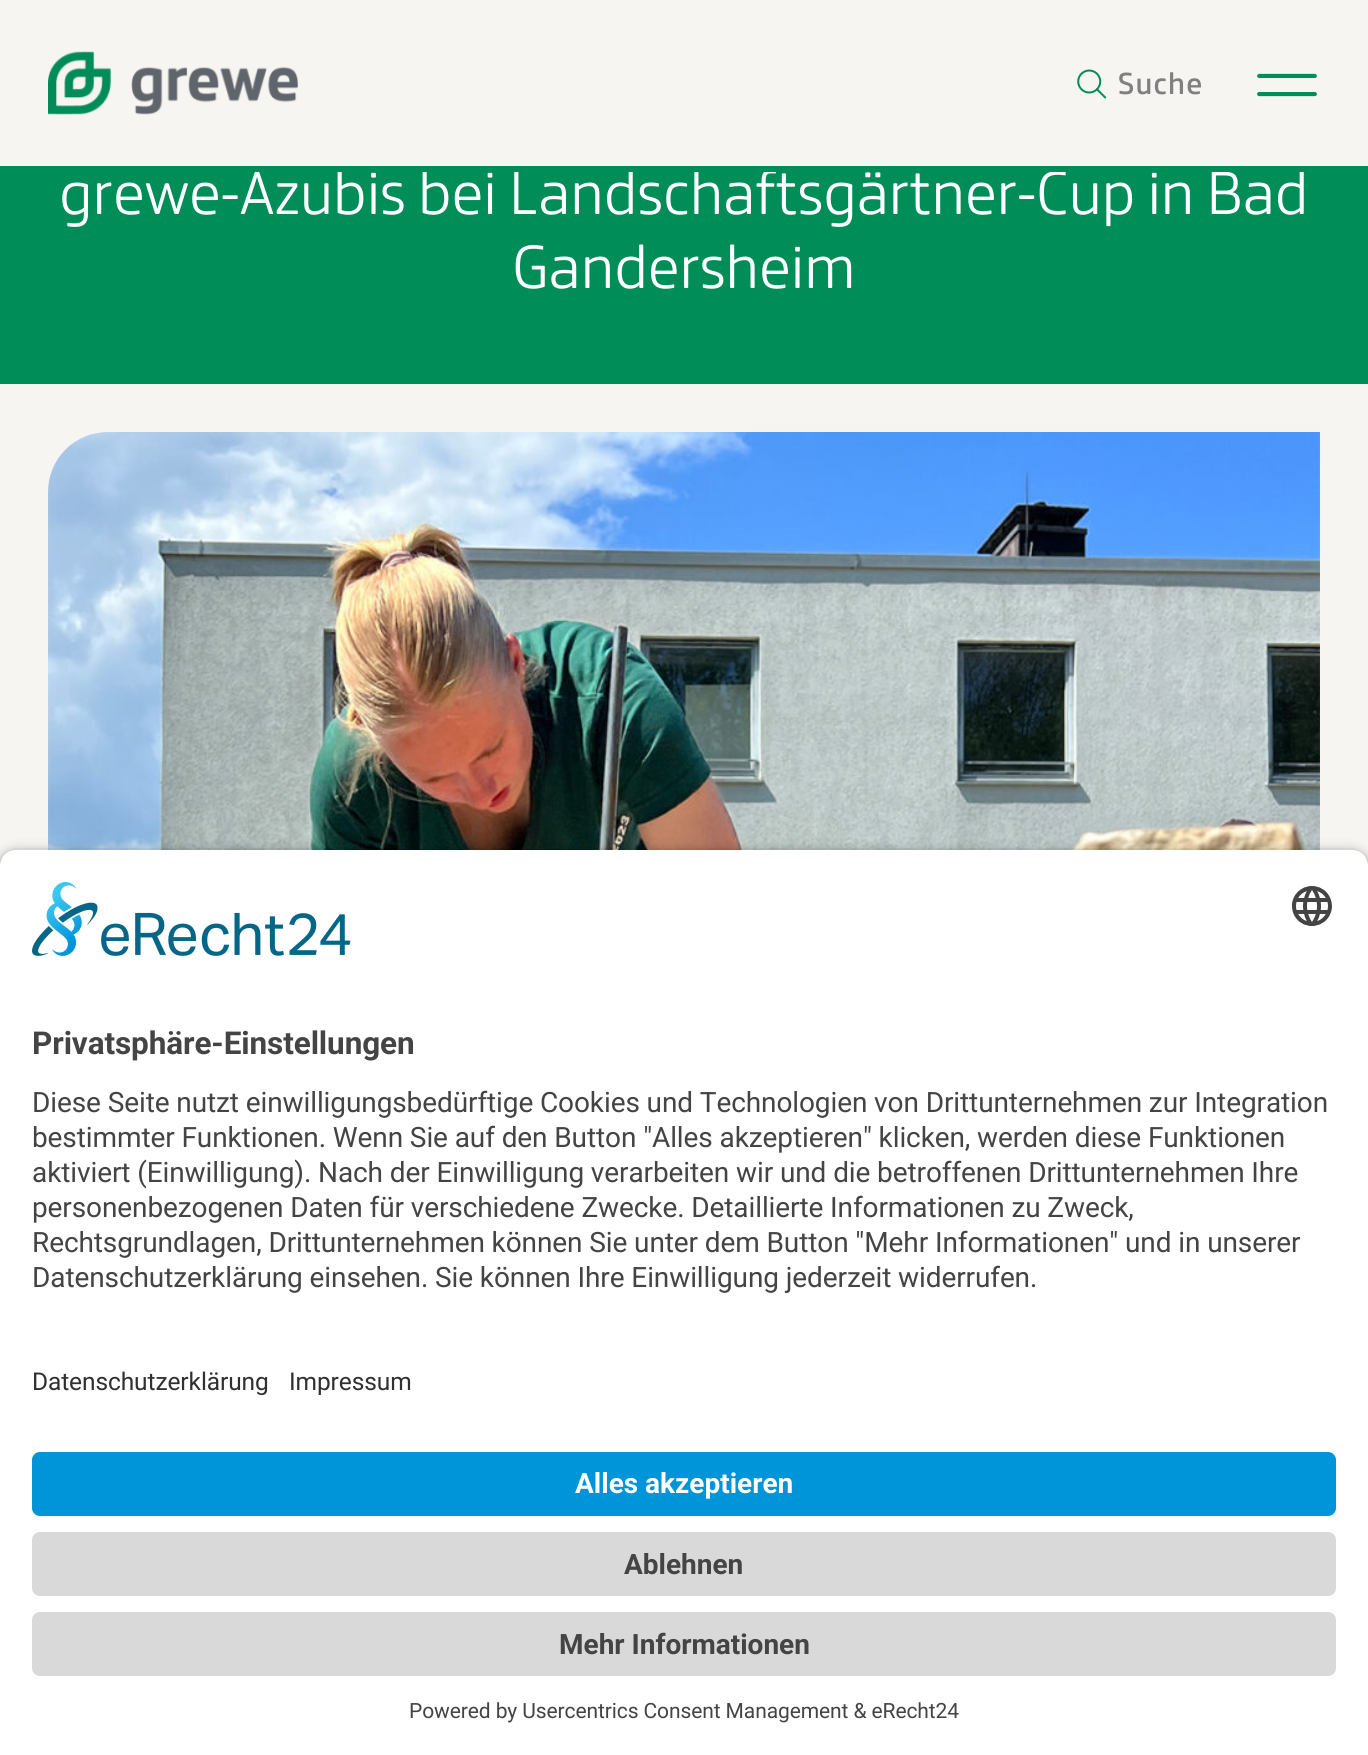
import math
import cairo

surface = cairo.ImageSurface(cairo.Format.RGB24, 1368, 1755)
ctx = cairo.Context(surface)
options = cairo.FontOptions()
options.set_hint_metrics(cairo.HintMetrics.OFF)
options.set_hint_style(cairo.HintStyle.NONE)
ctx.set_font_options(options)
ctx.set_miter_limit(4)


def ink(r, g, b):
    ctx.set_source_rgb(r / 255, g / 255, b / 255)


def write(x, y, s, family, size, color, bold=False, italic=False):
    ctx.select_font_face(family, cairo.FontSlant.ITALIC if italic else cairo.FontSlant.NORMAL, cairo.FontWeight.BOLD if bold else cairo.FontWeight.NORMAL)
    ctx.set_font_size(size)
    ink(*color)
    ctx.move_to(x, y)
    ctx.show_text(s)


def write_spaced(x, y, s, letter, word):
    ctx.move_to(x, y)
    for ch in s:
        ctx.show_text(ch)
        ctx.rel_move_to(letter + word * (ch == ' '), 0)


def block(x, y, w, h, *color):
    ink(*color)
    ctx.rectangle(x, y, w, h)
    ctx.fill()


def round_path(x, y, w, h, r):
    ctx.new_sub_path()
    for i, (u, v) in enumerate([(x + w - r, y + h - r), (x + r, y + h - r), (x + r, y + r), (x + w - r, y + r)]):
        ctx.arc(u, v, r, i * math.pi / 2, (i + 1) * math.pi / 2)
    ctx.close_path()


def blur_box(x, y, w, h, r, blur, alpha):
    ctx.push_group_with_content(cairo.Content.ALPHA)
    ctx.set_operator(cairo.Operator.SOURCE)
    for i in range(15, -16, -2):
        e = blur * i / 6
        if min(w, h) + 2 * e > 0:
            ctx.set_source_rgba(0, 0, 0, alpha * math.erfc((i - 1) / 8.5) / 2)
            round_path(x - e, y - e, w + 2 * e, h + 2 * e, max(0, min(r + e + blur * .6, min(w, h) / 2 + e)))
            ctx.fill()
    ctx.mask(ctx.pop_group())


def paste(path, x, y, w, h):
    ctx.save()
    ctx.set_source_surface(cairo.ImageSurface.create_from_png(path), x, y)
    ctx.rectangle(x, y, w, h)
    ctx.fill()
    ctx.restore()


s1 = dict(family="Roboto", size=28, color=(255, 255, 255), bold=True)
s2 = dict(family="Roboto", size=28, color=(68, 68, 68), bold=True)

ink(247, 245, 242)
ctx.paint()
block(0, 172, 1368, 212, 0, 141, 88)
ctx.select_font_face("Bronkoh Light")
ctx.set_font_size(64)
ink(255, 255, 255)
write_spaced(59, 214, "grewe-Azubis bei Landschaftsgärtner-Cup in Bad", -0.1, 0)
block(0, 166, 1368, 6, 0, 141, 88)
paste("pic1.png", 48, 51, 250, 64)
paste("pic2.png", 1077, 69, 30, 30)
ctx.select_font_face("Bronkoh SemiBold")
ctx.set_font_size(32)
ink(128, 128, 128)
write_spaced(1118, 94, "Suche", 1.25, 0)
paste("pic3.png", 1257, 73, 60, 24)
ctx.select_font_face("Bronkoh Light")
ctx.set_font_size(64)
ink(255, 255, 255)
write_spaced(512, 288, "Gandersheim", -0.1, 0)
paste("pic4.png", 48, 432, 1272, 418)
ink(0, 0, 0)
blur_box(0, 856, 1368, 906, 16, 7, 0.8)
ink(255, 255, 255)
ctx.new_path()
ctx.move_to(16, 850)
ctx.line_to(1352, 850)
ctx.curve_to(1361, 850, 1368, 857, 1368, 866)
ctx.line_to(1368, 1336)
ctx.line_to(0, 1336)
ctx.line_to(0, 866)
ctx.curve_to(0, 857, 7, 850, 16, 850)
ctx.close_path()
ctx.fill()
paste("pic5.png", 32, 882, 319, 74)
paste("pic6.png", 1292, 886, 40, 40)
ctx.select_font_face("Roboto", cairo.FontSlant.NORMAL, cairo.FontWeight.BOLD)
ctx.set_font_size(31.5)
ink(68, 68, 68)
write_spaced(32, 1054, "Privatsphäre-Einstellungen", -0.1, 0)
ctx.select_font_face("Roboto")
ctx.set_font_size(28)
write_spaced(32, 1112, "Diese Seite nutzt einwilligungsbedürftige Cookies und Technologien von Drittunternehmen zur Integration", -0.1, 0)
write_spaced(32, 1147, "bestimmter Funktionen. Wenn Sie auf den Button \"Alles akzeptieren\" klicken, werden diese Funktionen", -0.1, 0)
write_spaced(32, 1182, "aktiviert (Einwilligung). Nach der Einwilligung verarbeiten wir und die betroffenen Drittunternehmen Ihre", -0.1, 0)
write_spaced(32, 1217, "personenbezogenen Daten für verschiedene Zwecke. Detaillierte Informationen zu Zweck,", -0.1, 0)
write_spaced(32, 1252, "Rechtsgrundlagen, Drittunternehmen können Sie unter dem Button \"Mehr Informationen\" und in unserer", -0.1, 0)
write_spaced(32, 1287, "Datenschutzerklärung einsehen. Sie können Ihre Einwilligung jederzeit widerrufen.", -0.1, 0)
block(0, 1336, 1368, 419, 255, 255, 255)
ctx.set_font_size(24.5)
ink(48, 48, 48)
write_spaced(32, 1390, "Datenschutzerklärung", -0.1, 0)
write_spaced(289, 1390, "Impressum", -0.1, 0)
ink(0, 148, 216)
round_path(32, 1452, 1304, 64, 8)
ctx.fill()
write(575, 1493, "Alles akzeptieren", **s1)
ink(217, 217, 217)
round_path(32, 1532, 1304, 64, 8)
ctx.fill()
write(624, 1574, "Ablehnen", **s2)
ink(217, 217, 217)
round_path(32, 1612, 1304, 64, 8)
ctx.fill()
write(559, 1654, "Mehr Informationen", **s2)
ctx.select_font_face("Roboto")
ctx.set_font_size(21)
write_spaced(409, 1718, "Powered by Usercentrics Consent Management & eRecht24", -0.1, 0)
surface.write_to_png("screenshot.png")
